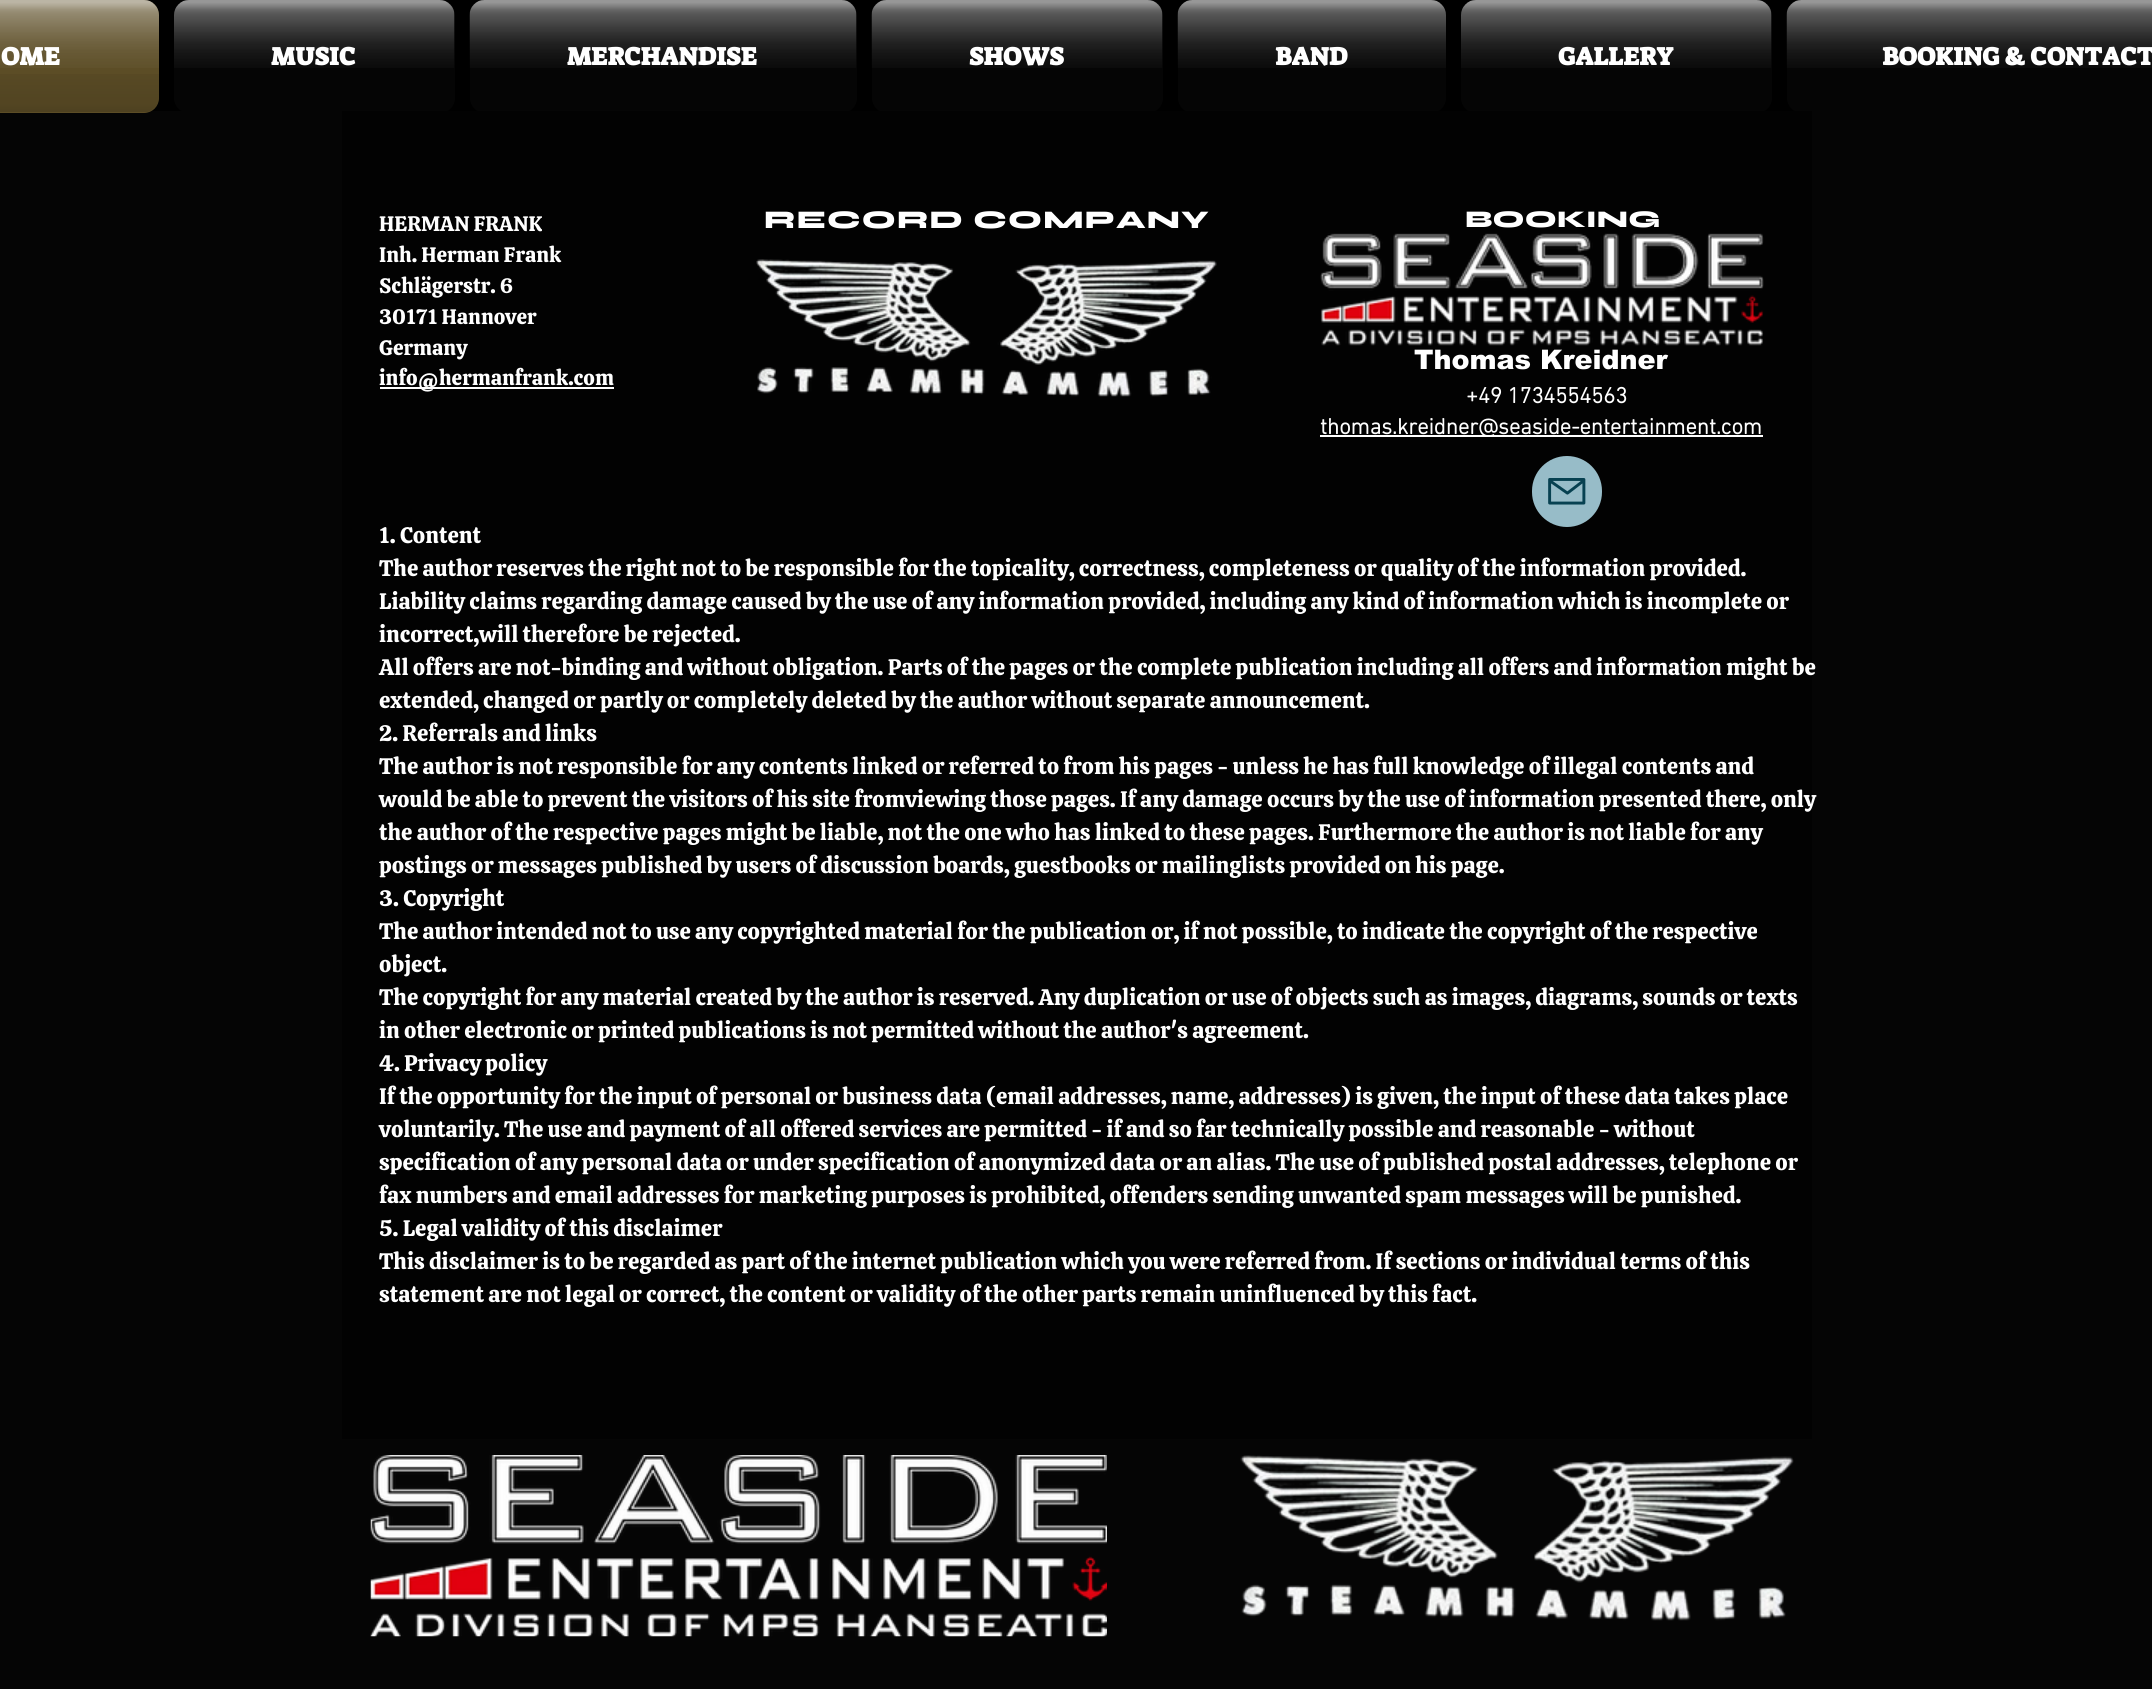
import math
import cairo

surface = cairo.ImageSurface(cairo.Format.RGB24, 2152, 1689)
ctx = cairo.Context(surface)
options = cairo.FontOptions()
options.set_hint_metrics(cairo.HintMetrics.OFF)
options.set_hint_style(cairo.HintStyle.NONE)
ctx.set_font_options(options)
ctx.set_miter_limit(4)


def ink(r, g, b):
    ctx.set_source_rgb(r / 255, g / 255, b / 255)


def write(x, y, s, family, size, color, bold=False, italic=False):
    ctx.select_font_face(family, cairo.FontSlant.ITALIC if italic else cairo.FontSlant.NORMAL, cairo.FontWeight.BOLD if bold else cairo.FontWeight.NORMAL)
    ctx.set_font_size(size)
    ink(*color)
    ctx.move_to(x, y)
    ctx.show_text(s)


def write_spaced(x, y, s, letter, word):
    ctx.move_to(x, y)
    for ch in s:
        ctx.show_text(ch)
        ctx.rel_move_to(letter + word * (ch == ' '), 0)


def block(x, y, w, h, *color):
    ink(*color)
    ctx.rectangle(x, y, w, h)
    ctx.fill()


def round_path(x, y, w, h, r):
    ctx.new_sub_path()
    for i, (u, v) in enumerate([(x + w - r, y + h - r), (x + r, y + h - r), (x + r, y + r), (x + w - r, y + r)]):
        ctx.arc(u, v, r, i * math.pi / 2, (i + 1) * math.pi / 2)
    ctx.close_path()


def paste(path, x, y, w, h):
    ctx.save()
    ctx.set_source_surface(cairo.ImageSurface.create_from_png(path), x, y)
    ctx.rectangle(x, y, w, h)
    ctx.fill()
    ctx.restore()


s1 = dict(family="Suez One", size=25.5, color=(255, 255, 255), bold=True)
s2 = dict(family="Calistoga", size=21, color=(255, 255, 255))
s3 = dict(family="Calistoga", size=22.5, color=(255, 255, 255))
s4 = dict(family="arial Black", size=27, color=(255, 255, 255))
s5 = dict(family="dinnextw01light", size=22.5, color=(255, 255, 255), bold=True)

ink(5, 5, 5)
ctx.paint()
block(144, 0, 1658, 111, 0, 0, 0)
ink(92, 77, 38)
round_path(-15, 0, 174, 113, 15)
ctx.fill()
paste("pic1.png", 0, 0, 159, 68)
paste("pic2.png", 0, 74, 159, 38)
write(1, 65, "OME", **s1)
ink(5, 5, 5)
round_path(174, 0, 281, 113, 15)
ctx.fill()
paste("pic3.png", 174, 0, 281, 68)
write(271, 65, "MUSIC", **s1)
ink(5, 5, 5)
round_path(470, 0, 387, 113, 15)
ctx.fill()
paste("pic4.png", 469, 0, 388, 68)
write(567, 65, "MERCHANDISE", **s1)
ink(5, 5, 5)
round_path(872, 0, 291, 113, 15)
ctx.fill()
paste("pic5.png", 871, 0, 292, 68)
write(969, 65, "SHOWS", **s1)
ink(5, 5, 5)
round_path(1178, 0, 268, 113, 15)
ctx.fill()
paste("pic6.png", 1177, 0, 269, 68)
write(1275, 65, "BAND", **s1)
ink(5, 5, 5)
round_path(1461, 0, 311, 113, 15)
ctx.fill()
paste("pic7.png", 1461, 0, 311, 68)
write(1558, 65, "GALLERY", **s1)
ink(5, 5, 5)
round_path(1787, 0, 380, 113, 15)
ctx.fill()
paste("pic8.png", 1786, 0, 366, 68)
write(1882, 65, "BOOKING & CONTACT", **s1)
block(342, 111, 1470, 1328, 2, 2, 2)
ctx.select_font_face("Syne ExtraBold")
ink(255, 255, 255)
write_spaced(764, 228, "RECORD COMPANY", 1.25, 0)
ctx.set_font_size(24)
write_spaced(1465, 227, "BOOKING", 0.25, 0)
write(379, 231, "HERMAN FRANK", **s2)
write(379, 262, "Inh. Herman Frank", **s2)
write(379, 293, "Schlägerstr. 6", **s2)
write(379, 324, "30171 Hannover", **s2)
write(379, 355, "Germany", **s2)
block(380, 387, 234, 2, 255, 255, 255)
write(379, 385, "info@hermanfrank.com", **s2)
write(379, 543, "1. Content", **s3)
write(379, 576, "The author reserves the right not to be responsible for the topicality, correctness, completeness or quality of the information provided.", **s3)
write(379, 609, "Liability claims regarding damage caused by the use of any information provided, including any kind of information which is incomplete or", **s3)
write(379, 642, "incorrect,will therefore be rejected.", **s3)
write(379, 675, "All offers are not-binding and without obligation. Parts of the pages or the complete publication including all offers and information might be", **s3)
write(379, 708, "extended, changed or partly or completely deleted by the author without separate announcement.", **s3)
write(379, 741, "2. Referrals and links", **s3)
write(379, 774, "The author is not responsible for any contents linked or referred to from his pages - unless he has full knowledge of illegal contents and", **s3)
write(379, 807, "would be able to prevent the visitors of his site fromviewing those pages. If any damage occurs by the use of information presented there, only", **s3)
write(379, 840, "the author of the respective pages might be liable, not the one who has linked to these pages. Furthermore the author is not liable for any", **s3)
write(379, 873, "postings or messages published by users of discussion boards, guestbooks or mailinglists provided on his page.", **s3)
write(379, 906, "3. Copyright", **s3)
write(379, 939, "The author intended not to use any copyrighted material for the publication or, if not possible, to indicate the copyright of the respective", **s3)
write(379, 972, "object.", **s3)
write(379, 1005, "The copyright for any material created by the author is reserved. Any duplication or use of objects such as images, diagrams, sounds or texts", **s3)
write(379, 1038, "in other electronic or printed publications is not permitted without the author's agreement.", **s3)
write(379, 1071, "4. Privacy policy", **s3)
write(379, 1104, "If the opportunity for the input of personal or business data (email addresses, name, addresses) is given, the input of these data takes place", **s3)
write(379, 1137, "voluntarily. The use and payment of all offered services are permitted - if and so far technically possible and reasonable - without", **s3)
write(379, 1170, "specification of any personal data or under specification of anonymized data or an alias. The use of published postal addresses, telephone or", **s3)
write(379, 1203, "fax numbers and email addresses for marketing purposes is prohibited, offenders sending unwanted spam messages will be punished.", **s3)
write(379, 1236, "5. Legal validity of this disclaimer", **s3)
write(379, 1269, "This disclaimer is to be regarded as part of the internet publication which you were referred from. If sections or individual terms of this", **s3)
write(379, 1302, "statement are not legal or correct, the content or validity of the other parts remain uninfluenced by this fact.", **s3)
paste("pic9.png", 756, 259, 461, 138)
paste("pic10.png", 1320, 233, 444, 113)
write(1414, 369, "Thomas Kreidner", **s4)
write(1466, 403, "+49 1734554563", **s5)
block(1320, 435, 443, 2, 255, 255, 255)
write(1320, 434, "thomas.kreidner@seaside-entertainment.com", **s5)
ink(151, 188, 200)
round_path(1532, 456, 70, 71, 35)
ctx.fill()
paste("pic11.png", 1548, 478, 38, 27)
paste("pic12.png", 370, 1455, 737, 182)
paste("pic13.png", 1240, 1455, 554, 166)
surface.write_to_png("screenshot.png")
